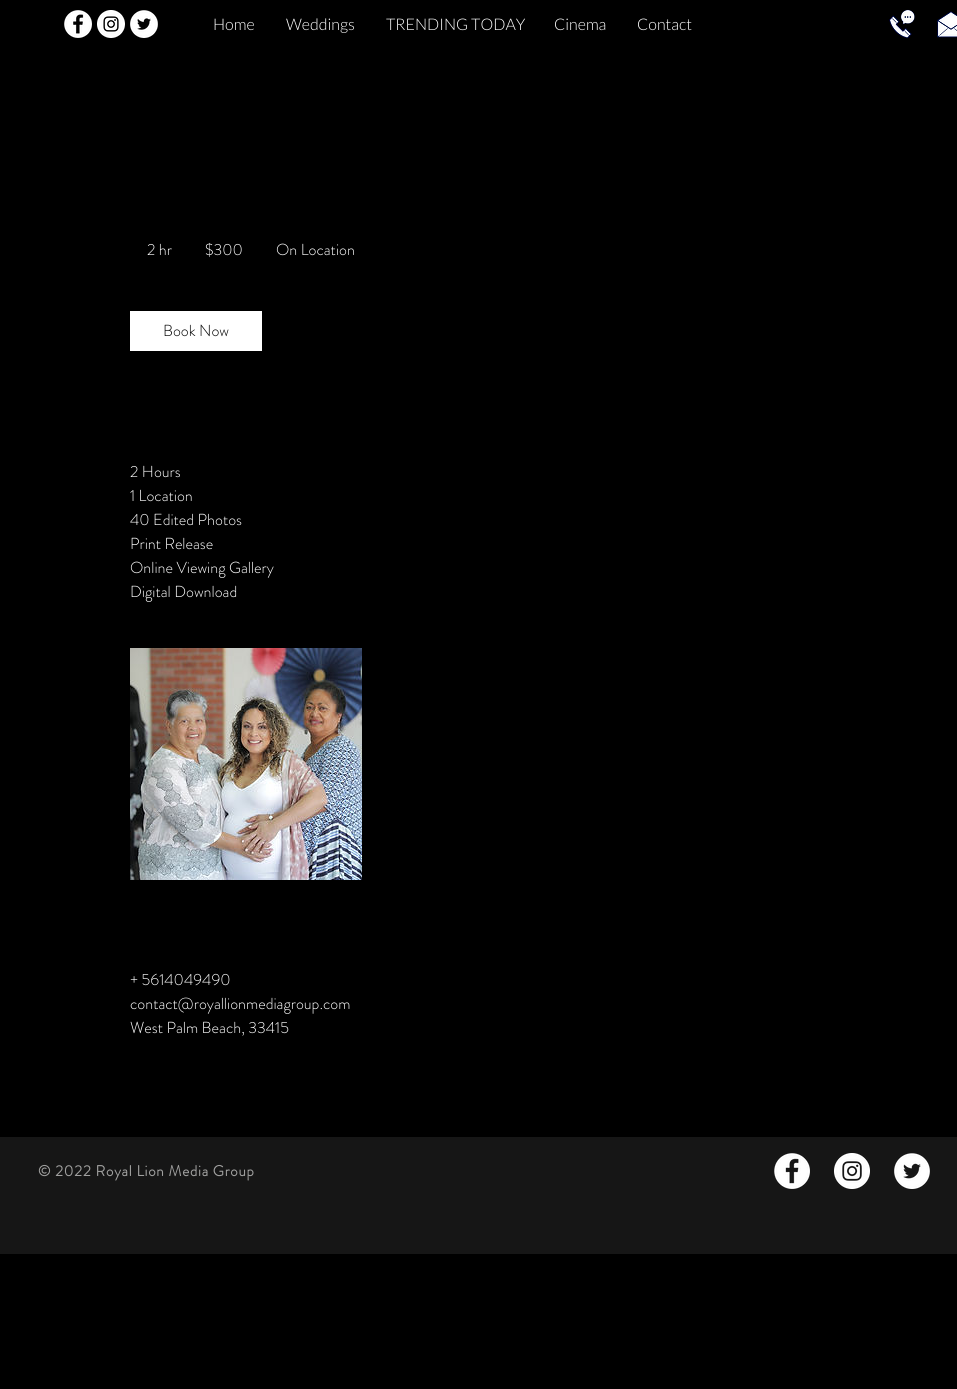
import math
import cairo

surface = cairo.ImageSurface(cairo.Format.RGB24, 957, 1389)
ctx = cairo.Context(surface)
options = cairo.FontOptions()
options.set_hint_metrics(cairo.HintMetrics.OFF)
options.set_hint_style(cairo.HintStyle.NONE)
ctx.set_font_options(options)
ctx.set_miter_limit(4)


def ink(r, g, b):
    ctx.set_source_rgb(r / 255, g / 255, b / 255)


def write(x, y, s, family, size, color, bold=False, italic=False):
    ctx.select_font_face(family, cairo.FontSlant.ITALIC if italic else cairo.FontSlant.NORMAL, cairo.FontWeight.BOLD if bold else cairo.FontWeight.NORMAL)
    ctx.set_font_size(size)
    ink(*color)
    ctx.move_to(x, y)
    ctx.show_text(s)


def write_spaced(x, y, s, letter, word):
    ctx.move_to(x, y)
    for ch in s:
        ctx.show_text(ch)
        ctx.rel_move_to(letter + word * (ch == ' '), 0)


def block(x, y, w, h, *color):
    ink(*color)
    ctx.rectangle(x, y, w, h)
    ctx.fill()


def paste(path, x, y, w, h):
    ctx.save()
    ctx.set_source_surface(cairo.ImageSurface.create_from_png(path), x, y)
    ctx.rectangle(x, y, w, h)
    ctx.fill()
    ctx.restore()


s1 = dict(family="Lato Light", size=16, color=(255, 255, 255))
s2 = dict(family="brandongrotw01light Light", size=16, color=(255, 255, 255))
s3 = dict(family="brandongrotw01light Light", size=16, color=(0, 0, 0))

ink(0, 0, 0)
ctx.paint()
paste("pic1.png", 64, 10, 28, 28)
paste("pic2.png", 97, 10, 28, 28)
paste("pic3.png", 130, 10, 28, 28)
write(213, 30, "Home", **s1)
write(286, 30, "Weddings", **s1)
write(386, 30, "TRENDING TODAY", **s1)
write(554, 30, "Cinema", **s1)
write(637, 30, "Contact", **s1)
paste("pic4.png", 889, 9, 26, 30)
paste("pic5.png", 937, 11, 20, 27)
write(147, 255, "2 hr", **s2)
write(205, 255, "$300", **s2)
write(276, 255, "On Location", **s2)
block(130, 311, 132, 40, 255, 255, 255)
write(163, 336, "Book Now", **s3)
write(130, 477, "2 Hours", **s2)
write(130, 501, "1 Location", **s2)
write(130, 525, "40 Edited Photos", **s2)
write(130, 549, "Print Release", **s2)
write(130, 573, "Online Viewing Gallery", **s2)
write(130, 597, "Digital Download", **s2)
paste("pic6.png", 130, 648, 232, 232)
write(130, 985, "+ 5614049490", **s2)
write(130, 1009, "contact@royallionmediagroup.com", **s2)
write(130, 1033, "West Palm Beach, 33415", **s2)
block(0, 1137, 957, 117, 22, 22, 22)
ctx.select_font_face("brandongrotw01light", cairo.FontSlant.NORMAL, cairo.FontWeight.BOLD)
ctx.set_font_size(15)
ink(160, 160, 159)
write_spaced(38, 1176, "© 2022 Royal Lion Media Group", 0.75, 0)
paste("pic7.png", 774, 1153, 36, 36)
paste("pic8.png", 834, 1153, 36, 36)
paste("pic9.png", 894, 1153, 36, 36)
surface.write_to_png("screenshot.png")
